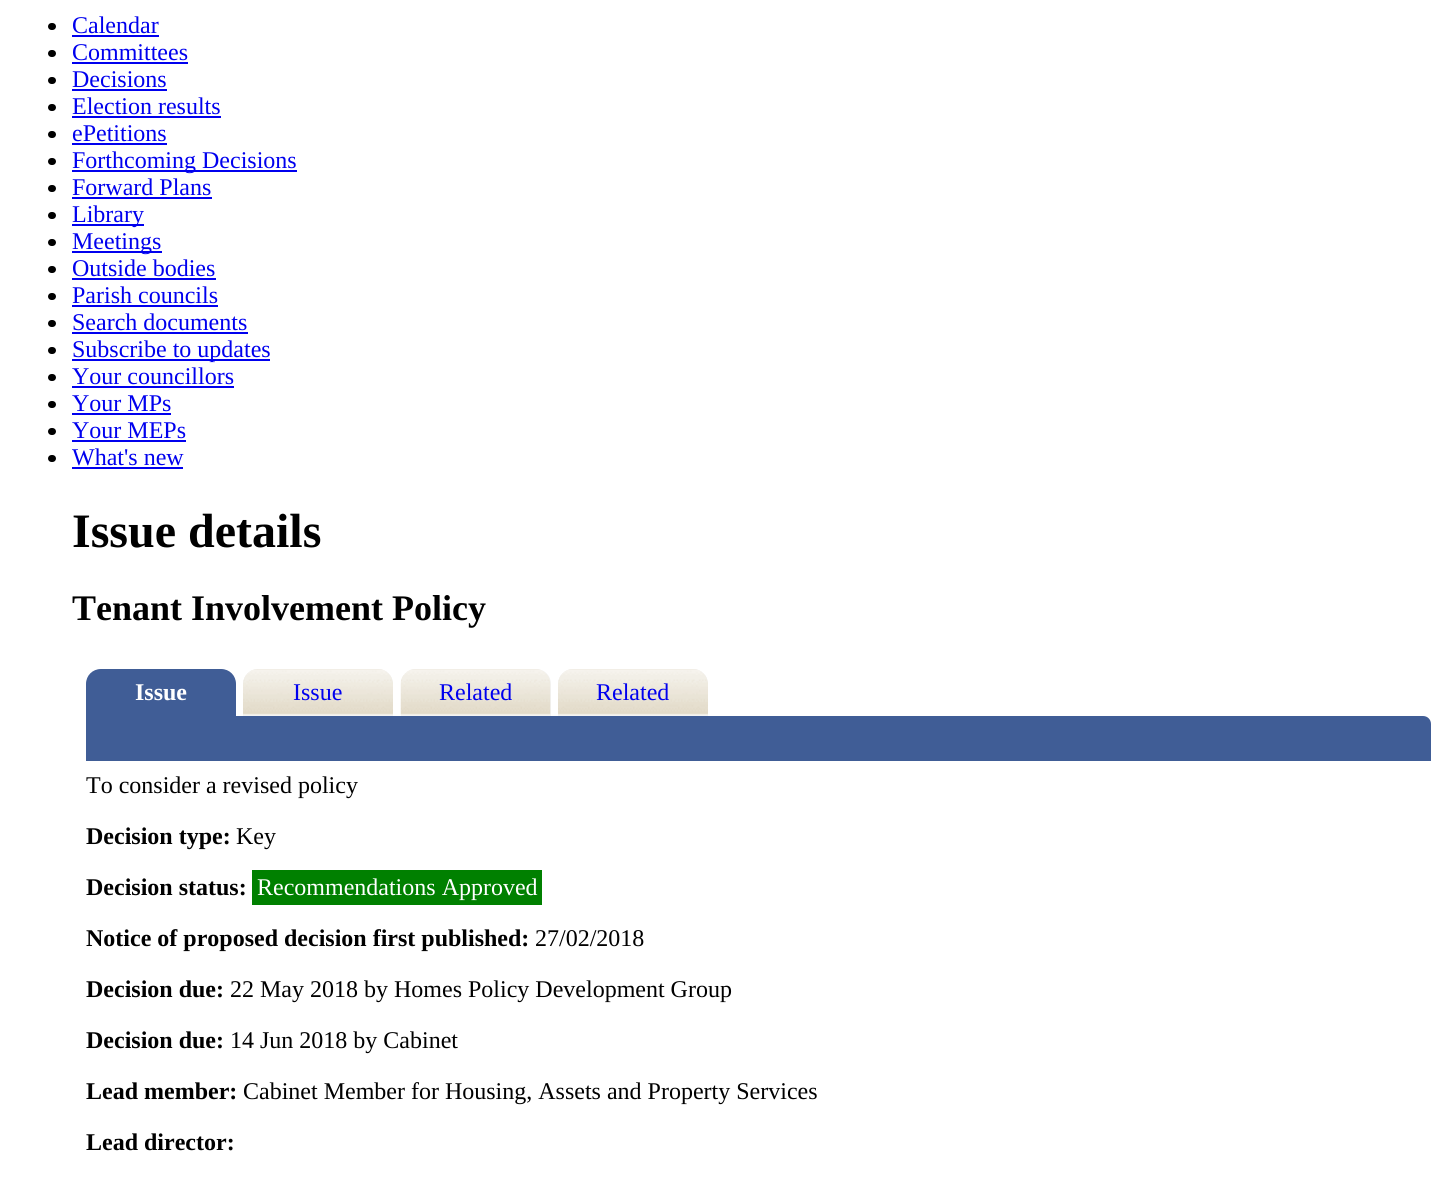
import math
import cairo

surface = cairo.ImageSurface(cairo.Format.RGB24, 1443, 1183)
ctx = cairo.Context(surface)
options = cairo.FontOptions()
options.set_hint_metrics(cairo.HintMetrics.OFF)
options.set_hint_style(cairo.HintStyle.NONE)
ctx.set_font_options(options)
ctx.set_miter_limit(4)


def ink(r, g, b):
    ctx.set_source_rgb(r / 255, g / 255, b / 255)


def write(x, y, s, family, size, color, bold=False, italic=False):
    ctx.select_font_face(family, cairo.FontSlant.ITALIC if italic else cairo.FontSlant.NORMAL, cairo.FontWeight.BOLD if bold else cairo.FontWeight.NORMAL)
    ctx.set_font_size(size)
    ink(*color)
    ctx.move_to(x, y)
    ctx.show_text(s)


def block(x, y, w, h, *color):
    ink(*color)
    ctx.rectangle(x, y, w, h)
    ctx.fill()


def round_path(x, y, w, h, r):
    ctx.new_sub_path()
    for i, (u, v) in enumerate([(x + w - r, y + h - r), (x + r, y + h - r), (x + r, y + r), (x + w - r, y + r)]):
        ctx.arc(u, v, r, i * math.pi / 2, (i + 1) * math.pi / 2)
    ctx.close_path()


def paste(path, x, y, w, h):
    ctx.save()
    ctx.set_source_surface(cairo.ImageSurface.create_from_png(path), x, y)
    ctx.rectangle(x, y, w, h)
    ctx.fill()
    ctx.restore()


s1 = dict(family="Liberation Serif", size=24, color=(0, 0, 238))
s2 = dict(family="Liberation Serif", size=48, color=(0, 0, 0), bold=True)
s3 = dict(family="Liberation Serif", size=36, color=(0, 0, 0), bold=True)
s4 = dict(family="Liberation Serif", size=24, color=(255, 255, 255), bold=True)
s5 = dict(family="Liberation Serif", size=24, color=(0, 0, 0))
s6 = dict(family="Liberation Serif", size=24, color=(0, 0, 0), bold=True)
s7 = dict(family="Liberation Serif", size=24, color=(255, 255, 255))

ink(255, 255, 255)
ctx.paint()
ink(0, 0, 0)
round_path(48, 23, 8, 7, 3.5)
ctx.fill()
write(72, 33, "Calendar", **s1)
block(72, 35, 87, 2, 0, 0, 238)
ink(0, 0, 0)
round_path(48, 50, 8, 7, 3.5)
ctx.fill()
write(72, 60, "Committees", **s1)
block(72, 62, 116, 2, 0, 0, 238)
ink(0, 0, 0)
round_path(48, 77, 8, 7, 3.5)
ctx.fill()
write(72, 87, "Decisions", **s1)
block(72, 89, 95, 2, 0, 0, 238)
ink(0, 0, 0)
round_path(48, 104, 8, 7, 3.5)
ctx.fill()
write(72, 114, "Election results", **s1)
block(72, 116, 149, 2, 0, 0, 238)
ink(0, 0, 0)
round_path(48, 131, 8, 7, 3.5)
ctx.fill()
write(72, 141, "ePetitions", **s1)
block(72, 143, 95, 2, 0, 0, 238)
ink(0, 0, 0)
round_path(48, 158, 8, 7, 3.5)
ctx.fill()
block(72, 170, 225, 2, 0, 0, 238)
write(72, 168, "Forthcoming Decisions", **s1)
ink(0, 0, 0)
round_path(48, 185, 8, 7, 3.5)
ctx.fill()
write(72, 195, "Forward Plans", **s1)
block(72, 197, 140, 2, 0, 0, 238)
ink(0, 0, 0)
round_path(48, 212, 8, 7, 3.5)
ctx.fill()
block(72, 224, 72, 2, 0, 0, 238)
write(72, 222, "Library", **s1)
ink(0, 0, 0)
round_path(48, 239, 8, 7, 3.5)
ctx.fill()
block(72, 251, 90, 2, 0, 0, 238)
write(72, 249, "Meetings", **s1)
ink(0, 0, 0)
round_path(48, 266, 8, 7, 3.5)
ctx.fill()
write(72, 276, "Outside bodies", **s1)
block(72, 278, 144, 2, 0, 0, 238)
ink(0, 0, 0)
round_path(48, 293, 8, 7, 3.5)
ctx.fill()
write(72, 303, "Parish councils", **s1)
block(72, 305, 146, 2, 0, 0, 238)
ink(0, 0, 0)
round_path(48, 320, 8, 7, 3.5)
ctx.fill()
write(72, 330, "Search documents", **s1)
block(72, 332, 176, 2, 0, 0, 238)
ink(0, 0, 0)
round_path(48, 347, 8, 7, 3.5)
ctx.fill()
block(72, 359, 198, 2, 0, 0, 238)
write(72, 357, "Subscribe to updates", **s1)
ink(0, 0, 0)
round_path(48, 374, 8, 7, 3.5)
ctx.fill()
write(72, 384, "Your councillors", **s1)
block(72, 386, 162, 2, 0, 0, 238)
ink(0, 0, 0)
round_path(48, 401, 8, 7, 3.5)
ctx.fill()
write(72, 411, "Your MPs", **s1)
block(72, 413, 99, 2, 0, 0, 238)
ink(0, 0, 0)
round_path(48, 428, 8, 7, 3.5)
ctx.fill()
write(72, 438, "Your MEPs", **s1)
block(72, 440, 114, 2, 0, 0, 238)
ink(0, 0, 0)
round_path(48, 455, 8, 7, 3.5)
ctx.fill()
write(72, 465, "What's new", **s1)
block(72, 467, 111, 2, 0, 0, 238)
write(72, 547, "Issue details", **s2)
write(72, 620, "Tenant Involvement Policy", **s3)
ink(64, 93, 150)
ctx.new_path()
ctx.move_to(101, 669)
ctx.line_to(221, 669)
ctx.curve_to(229.5, 669, 236, 675.5, 236, 684)
ctx.line_to(236, 716)
ctx.line_to(86, 716)
ctx.line_to(86, 684)
ctx.curve_to(86, 675.5, 92.5, 669, 101, 669)
ctx.close_path()
ctx.fill()
write(135, 700, "Issue", **s4)
ink(243, 243, 243)
ctx.new_path()
ctx.move_to(258, 669)
ctx.line_to(378, 669)
ctx.curve_to(386.5, 669, 393, 675.5, 393, 684)
ctx.line_to(393, 716)
ctx.line_to(243, 716)
ctx.line_to(243, 684)
ctx.curve_to(243, 675.5, 249.5, 669, 258, 669)
ctx.close_path()
ctx.fill()
paste("pic1.png", 243, 669, 150, 46)
write(293, 700, "Issue", **s1)
ink(243, 243, 243)
ctx.new_path()
ctx.move_to(416, 669)
ctx.line_to(536, 669)
ctx.curve_to(544.5, 669, 551, 675.5, 551, 684)
ctx.line_to(551, 716)
ctx.line_to(401, 716)
ctx.line_to(401, 684)
ctx.curve_to(401, 675.5, 407.5, 669, 416, 669)
ctx.close_path()
ctx.fill()
paste("pic2.png", 400, 669, 151, 46)
write(439, 700, "Related", **s1)
ink(243, 243, 243)
ctx.new_path()
ctx.move_to(573, 669)
ctx.line_to(693, 669)
ctx.curve_to(701.5, 669, 708, 675.5, 708, 684)
ctx.line_to(708, 716)
ctx.line_to(558, 716)
ctx.line_to(558, 684)
ctx.curve_to(558, 675.5, 564.5, 669, 573, 669)
ctx.close_path()
ctx.fill()
paste("pic3.png", 558, 669, 150, 46)
write(596, 700, "Related", **s1)
ink(64, 93, 150)
ctx.new_path()
ctx.move_to(86, 716)
ctx.line_to(1423, 716)
ctx.curve_to(1427.5, 716, 1431, 719.5, 1431, 724)
ctx.line_to(1431, 761)
ctx.line_to(86, 761)
ctx.close_path()
ctx.fill()
write(86, 793, "To consider a revised policy", **s5)
write(86, 844, "Decision type:", **s6)
write(236, 844, "Key", **s5)
write(86, 895, "Decision status:", **s6)
block(252, 870, 290, 35, 0, 128, 0)
write(257, 895, "Recommendations Approved", **s7)
write(86, 946, "Notice of proposed decision first published:", **s6)
write(535, 946, "27/02/2018", **s5)
write(86, 997, "Decision due:", **s6)
write(230, 997, "22 May 2018 by Homes Policy Development Group", **s5)
write(86, 1048, "Decision due:", **s6)
write(230, 1048, "14 Jun 2018 by Cabinet", **s5)
write(86, 1099, "Lead member:", **s6)
write(243, 1099, "Cabinet Member for Housing, Assets and Property Services", **s5)
write(86, 1150, "Lead director:", **s6)
surface.write_to_png("screenshot.png")
